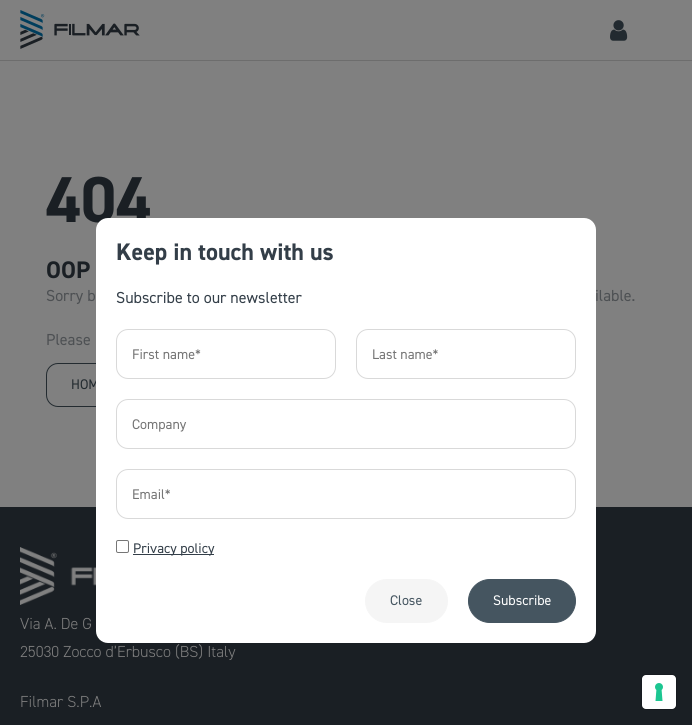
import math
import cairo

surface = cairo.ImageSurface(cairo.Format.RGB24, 692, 725)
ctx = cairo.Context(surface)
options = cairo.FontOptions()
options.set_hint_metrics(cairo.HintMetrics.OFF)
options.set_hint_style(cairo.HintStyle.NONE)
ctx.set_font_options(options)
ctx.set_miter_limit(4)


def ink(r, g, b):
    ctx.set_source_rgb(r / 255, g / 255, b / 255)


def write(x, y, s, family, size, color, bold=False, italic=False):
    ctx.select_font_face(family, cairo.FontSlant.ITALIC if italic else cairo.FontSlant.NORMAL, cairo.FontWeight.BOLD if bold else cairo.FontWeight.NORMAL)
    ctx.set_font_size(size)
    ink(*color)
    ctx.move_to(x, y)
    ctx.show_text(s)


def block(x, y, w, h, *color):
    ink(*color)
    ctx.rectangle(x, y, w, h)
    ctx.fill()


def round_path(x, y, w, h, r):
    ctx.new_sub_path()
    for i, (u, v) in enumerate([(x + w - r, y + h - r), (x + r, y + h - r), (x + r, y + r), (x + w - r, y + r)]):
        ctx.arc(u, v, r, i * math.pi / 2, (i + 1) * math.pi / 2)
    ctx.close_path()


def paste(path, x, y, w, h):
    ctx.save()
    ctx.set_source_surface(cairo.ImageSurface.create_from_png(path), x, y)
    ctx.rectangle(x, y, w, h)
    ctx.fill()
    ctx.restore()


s1 = dict(family="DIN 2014", size=65, color=(26, 31, 36), bold=True)
s2 = dict(family="DIN 2014", size=24, color=(26, 31, 36), bold=True)
s3 = dict(family="DIN 2014", size=16, color=(77, 80, 83))
s4 = dict(family="DIN 2014", size=14, color=(35, 43, 48))
s5 = dict(family="DIN 2014", size=24, color=(51, 62, 72), bold=True)
s6 = dict(family="DIN 2014", size=16, color=(51, 62, 72))
s7 = dict(family="DIN 2014", size=14, color=(117, 117, 117))
s8 = dict(family="DIN 2014", size=14, color=(51, 62, 72))
s9 = dict(family="DIN 2014", size=14, color=(69, 85, 96))
s10 = dict(family="DIN 2014", size=14, color=(255, 255, 255))
s11 = dict(family="DIN 2014 Light", size=16, color=(128, 128, 128))

ink(128, 128, 128)
ctx.paint()
block(0, 60, 692, 1, 109, 109, 109)
paste("pic1.png", 20, 10, 120, 39)
paste("pic2.png", 610, 20, 18, 21)
write(46, 222, "404", **s1)
write(46, 278, "OOP", **s2)
write(46, 301, "Sorry b", **s3)
write(595, 301, "ilable.", **s3)
write(46, 345, "Please", **s3)
round_path(46.5, 363.5, 120, 43, 11.5)
ink(35, 43, 48)
ctx.set_line_width(1)
ctx.stroke()
write(71, 389, "HOM", **s4)
block(0, 507, 692, 218, 26, 31, 36)
ink(255, 255, 255)
round_path(96, 218, 500, 425, 12)
ctx.fill()
write(116, 260, "Keep in touch with us", **s5)
write(116, 303, "Subscribe to our newsletter", **s6)
round_path(116.5, 329.5, 219, 49, 11.5)
ink(217, 217, 217)
ctx.stroke()
write(132, 359, "First name*", **s7)
round_path(356.5, 329.5, 219, 49, 11.5)
ink(217, 217, 217)
ctx.stroke()
write(372, 359, "Last name*", **s7)
round_path(116.5, 399.5, 459, 49, 11.5)
ink(217, 217, 217)
ctx.stroke()
write(132, 429, "Company", **s7)
round_path(116.5, 469.5, 459, 49, 11.5)
ink(217, 217, 217)
ctx.stroke()
write(132, 499, "Email*", **s7)
round_path(116.5, 540.5, 12, 12, 1.5)
ink(118, 118, 118)
ctx.stroke()
block(133, 554, 81, 1, 51, 62, 72)
write(133, 553, "Privacy policy", **s8)
ink(245, 245, 245)
round_path(365.5, 579.5, 82, 43, 21.5)
ctx.fill_preserve()
ctx.stroke()
write(390, 605, "Close", **s9)
round_path(468.5, 579.5, 107, 43, 21.5)
ctx.fill_preserve()
ctx.stroke()
write(493, 605, "Subscribe", **s10)
paste("pic3.png", 20, 547, 76, 58)
write(20, 629, "Via A. De G", **s11)
write(20, 657, "25030 Zocco d’Erbusco (BS) Italy", **s11)
write(20, 707, "Filmar S.P.A", **s11)
round_path(641.5, 674.5, 35, 35, 4.5)
ink(22, 26, 31)
ctx.stroke()
ink(255, 255, 255)
round_path(642, 675, 34, 34, 4)
ctx.fill()
paste("pic4.png", 655, 683, 8, 18)
surface.write_to_png("screenshot.png")
